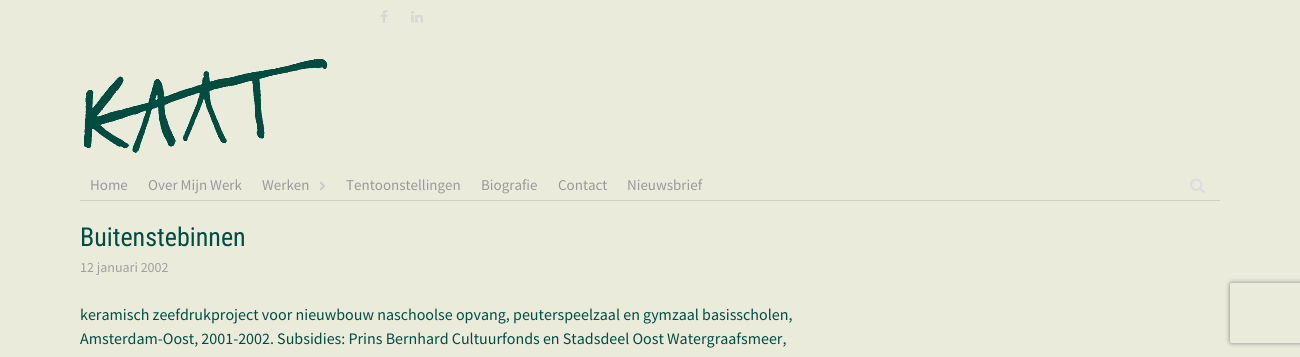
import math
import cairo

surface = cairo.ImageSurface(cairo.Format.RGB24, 1300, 357)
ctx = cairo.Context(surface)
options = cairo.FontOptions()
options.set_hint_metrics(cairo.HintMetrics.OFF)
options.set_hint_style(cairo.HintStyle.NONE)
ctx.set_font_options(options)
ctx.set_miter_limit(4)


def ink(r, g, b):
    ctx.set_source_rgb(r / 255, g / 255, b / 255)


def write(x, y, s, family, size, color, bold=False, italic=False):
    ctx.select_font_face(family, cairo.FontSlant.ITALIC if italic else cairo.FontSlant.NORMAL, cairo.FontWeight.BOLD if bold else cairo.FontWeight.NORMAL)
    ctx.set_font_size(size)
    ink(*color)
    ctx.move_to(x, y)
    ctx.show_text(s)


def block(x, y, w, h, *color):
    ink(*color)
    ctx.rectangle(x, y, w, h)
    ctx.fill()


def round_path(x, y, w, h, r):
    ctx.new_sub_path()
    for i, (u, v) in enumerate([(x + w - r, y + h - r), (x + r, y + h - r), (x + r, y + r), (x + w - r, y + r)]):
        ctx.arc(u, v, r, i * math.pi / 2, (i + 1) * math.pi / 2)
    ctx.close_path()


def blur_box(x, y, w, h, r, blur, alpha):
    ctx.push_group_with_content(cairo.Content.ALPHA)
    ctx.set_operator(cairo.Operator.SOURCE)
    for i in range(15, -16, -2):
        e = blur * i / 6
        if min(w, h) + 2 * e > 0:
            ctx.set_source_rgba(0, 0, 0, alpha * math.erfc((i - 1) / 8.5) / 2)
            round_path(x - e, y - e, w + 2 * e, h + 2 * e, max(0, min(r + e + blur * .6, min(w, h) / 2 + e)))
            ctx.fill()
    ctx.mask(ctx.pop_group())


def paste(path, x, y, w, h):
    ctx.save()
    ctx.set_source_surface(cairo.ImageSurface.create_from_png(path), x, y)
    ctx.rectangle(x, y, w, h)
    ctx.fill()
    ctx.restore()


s1 = dict(family="Source Sans Pro", size=15, color=(153, 153, 153))
s2 = dict(family="Roboto Condensed", size=26, color=(0, 77, 66))
s3 = dict(family="Source Sans Pro", size=14, color=(159, 159, 159))
s4 = dict(family="Source Sans Pro", size=16, color=(0, 77, 66))

ink(235, 235, 220)
ctx.paint()
paste("pic1.png", 380, 10, 8, 13)
paste("pic2.png", 411, 11, 12, 12)
paste("pic3.png", 83, 58, 245, 95)
block(80, 200, 1140, 1, 208, 208, 191)
write(90, 190, "Home", **s1)
write(148, 190, "Over Mijn Werk", **s1)
write(262, 190, "Werken", **s1)
paste("pic4.png", 319, 181, 6, 10)
write(346, 190, "Tentoonstellingen", **s1)
write(481, 190, "Biografie", **s1)
write(558, 190, "Contact", **s1)
write(627, 190, "Nieuwsbrief", **s1)
paste("pic5.png", 1190, 178, 15, 15)
write(80, 246, "Buitenstebinnen", **s2)
write(80, 272, "12 januari 2002", **s3)
write(80, 320, "keramisch zeefdrukproject voor nieuwbouw naschoolse opvang, peuterspeelzaal en gymzaal basisscholen,", **s4)
write(80, 344, "Amsterdam-Oost, 2001-2002. Subsidies: Prins Bernhard Cultuurfonds en Stadsdeel Oost Watergraafsmeer,", **s4)
ctx.save()
ctx.set_fill_rule(cairo.FillRule.EVEN_ODD)
ctx.new_path()
ctx.move_to(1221, 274)
ctx.line_to(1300, 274)
ctx.line_to(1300, 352)
ctx.line_to(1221, 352)
ctx.close_path()
ctx.move_to(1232, 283)
ctx.line_to(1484, 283)
ctx.curve_to(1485, 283, 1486, 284, 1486, 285)
ctx.line_to(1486, 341)
ctx.curve_to(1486, 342, 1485, 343, 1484, 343)
ctx.line_to(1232, 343)
ctx.curve_to(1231, 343, 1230, 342, 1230, 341)
ctx.line_to(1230, 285)
ctx.curve_to(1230, 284, 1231, 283, 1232, 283)
ctx.close_path()
ctx.clip()
ink(128, 128, 128)
blur_box(1230, 283, 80, 60, 2, 2.5, 1)
ctx.restore()
surface.write_to_png("screenshot.png")
